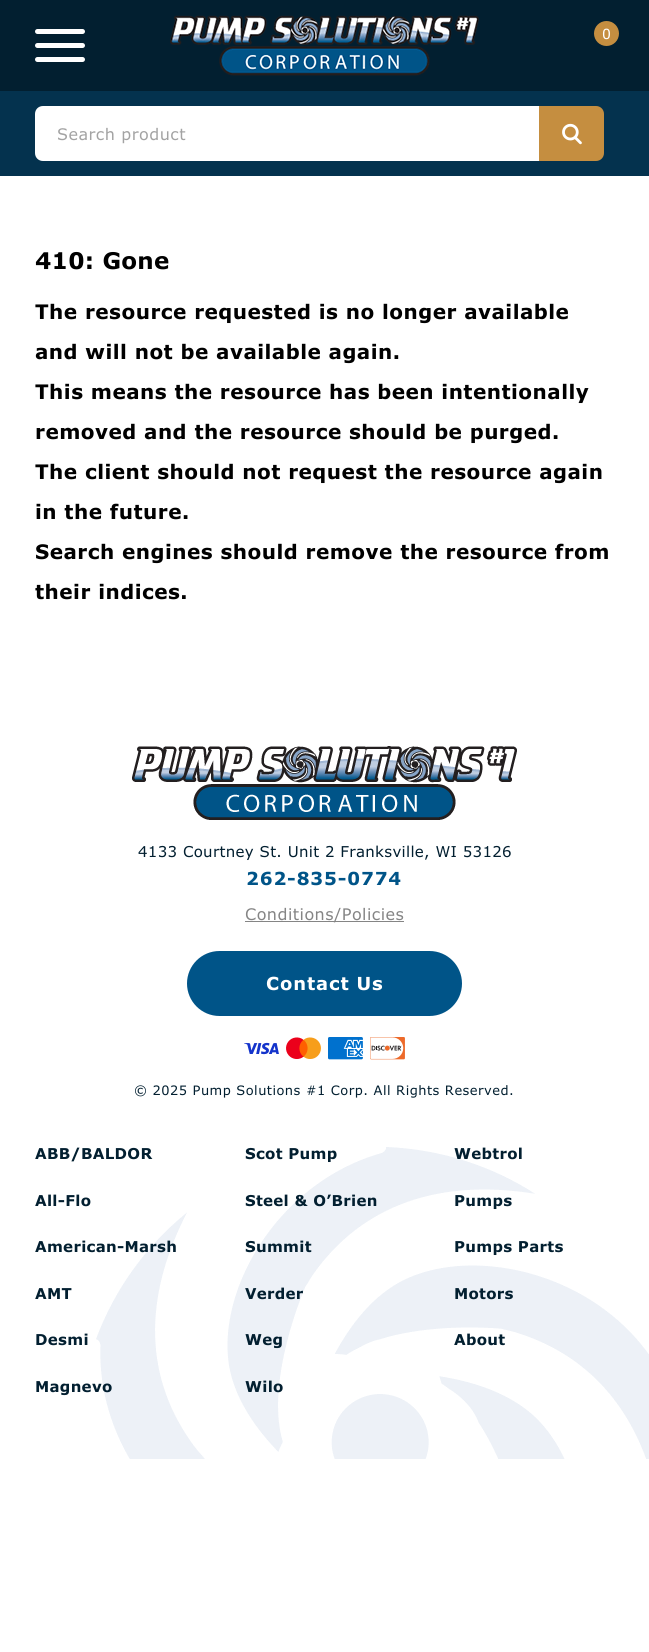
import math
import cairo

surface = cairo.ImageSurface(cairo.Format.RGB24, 649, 1652)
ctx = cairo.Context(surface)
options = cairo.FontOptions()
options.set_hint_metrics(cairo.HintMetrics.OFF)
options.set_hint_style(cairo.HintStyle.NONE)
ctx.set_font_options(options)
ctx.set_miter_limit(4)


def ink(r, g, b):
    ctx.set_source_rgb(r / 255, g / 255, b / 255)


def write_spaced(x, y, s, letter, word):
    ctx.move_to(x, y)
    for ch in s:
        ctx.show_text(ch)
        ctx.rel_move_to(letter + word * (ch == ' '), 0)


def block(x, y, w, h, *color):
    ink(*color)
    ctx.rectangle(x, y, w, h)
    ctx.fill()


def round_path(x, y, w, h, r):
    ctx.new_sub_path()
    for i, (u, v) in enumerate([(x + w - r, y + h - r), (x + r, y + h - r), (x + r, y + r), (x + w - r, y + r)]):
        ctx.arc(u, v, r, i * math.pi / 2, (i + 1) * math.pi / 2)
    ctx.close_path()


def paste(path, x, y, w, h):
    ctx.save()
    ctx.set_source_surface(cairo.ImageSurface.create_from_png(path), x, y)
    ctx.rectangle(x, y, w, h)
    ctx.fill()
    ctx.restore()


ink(255, 255, 255)
ctx.paint()
block(0, 0, 649, 91, 2, 31, 48)
ink(255, 255, 255)
round_path(35, 43, 50, 5, 2.5)
ctx.fill()
round_path(35, 29, 50, 5, 2.5)
ctx.fill()
round_path(35, 57, 50, 5, 2.5)
ctx.fill()
paste("pic1.png", 170, 15, 309, 61)
ink(197, 142, 64)
ctx.arc(606.5, 33.5, 12.5, 0, 2 * math.pi)
ctx.fill()
ctx.select_font_face("Verdana")
ctx.set_font_size(14)
ink(255, 255, 255)
write_spaced(602, 39, "0", 0.48, 0)
block(0, 91, 649, 85, 4, 50, 78)
ink(255, 255, 255)
ctx.new_path()
ctx.move_to(43, 107)
ctx.line_to(538, 107)
ctx.line_to(538, 160)
ctx.line_to(43, 160)
ctx.curve_to(39, 160, 36, 157, 36, 153)
ctx.line_to(36, 114)
ctx.curve_to(36, 110, 39, 107, 43, 107)
ctx.close_path()
ctx.fill_preserve()
ctx.stroke()
ctx.set_font_size(16)
ink(163, 163, 163)
write_spaced(57, 140, "Search product", 0.48, 0)
ink(197, 142, 64)
ctx.new_path()
ctx.move_to(539, 106)
ctx.line_to(596, 106)
ctx.curve_to(600.5, 106, 604, 109.5, 604, 114)
ctx.line_to(604, 153)
ctx.curve_to(604, 157.5, 600.5, 161, 596, 161)
ctx.line_to(539, 161)
ctx.close_path()
ctx.fill()
paste("pic2.png", 562, 123, 20, 22)
ctx.select_font_face("Verdana", cairo.FontSlant.NORMAL, cairo.FontWeight.BOLD)
ctx.set_font_size(23)
ink(0, 0, 0)
write_spaced(35, 269, "410: Gone", 0.25, 0)
ctx.set_font_size(20)
write_spaced(35, 319, "The resource requested is no longer available", 0.48, 0)
write_spaced(35, 359, "and will not be available again.", 0.48, 0)
write_spaced(35, 399, "This means the resource has been intentionally", 0.48, 0)
write_spaced(35, 439, "removed and the resource should be purged.", 0.48, 0)
write_spaced(35, 479, "The client should not request the resource again", 0.48, 0)
write_spaced(35, 519, "in the future.", 0.48, 0)
write_spaced(35, 559, "Search engines should remove the resource from", 0.48, 0)
write_spaced(35, 599, "their indices.", 0.48, 0)
paste("pic3.png", 132, 746, 385, 74)
ctx.select_font_face("Verdana")
ctx.set_font_size(15)
ink(2, 31, 48)
write_spaced(138, 857, "4133 Courtney St. Unit 2 Franksville, WI 53126", 0.3, 0)
ctx.select_font_face("Verdana", cairo.FontSlant.NORMAL, cairo.FontWeight.BOLD)
ctx.set_font_size(18)
ink(0, 84, 136)
write_spaced(246, 885, "262-835-0774", 0.9, 0)
block(245, 921, 159, 1, 133, 133, 133)
ctx.select_font_face("Verdana")
ctx.set_font_size(16)
write_spaced(245, 920, "Conditions/Policies", 0.48, 0)
ink(0, 84, 136)
round_path(187, 951, 275, 65, 32.5)
ctx.fill()
ctx.select_font_face("Verdana", cairo.FontSlant.NORMAL, cairo.FontWeight.BOLD)
ctx.set_font_size(18)
ink(255, 255, 255)
write_spaced(266, 990, "Contact Us", 0.9, 0)
paste("pic4.png", 244, 1042, 35, 13)
paste("pic5.png", 286, 1037, 35, 22)
paste("pic6.png", 328, 1037, 35, 23)
paste("pic7.png", 370, 1037, 35, 23)
ctx.select_font_face("Verdana")
ctx.set_font_size(13)
ink(2, 31, 48)
write_spaced(134, 1095, "© 2025 Pump Solutions #1 Corp. All Rights Reserved.", 0.48, 0)
paste("pic8.png", 96, 1147, 553, 312)
ctx.select_font_face("Verdana", cairo.FontSlant.NORMAL, cairo.FontWeight.BOLD)
ctx.set_font_size(15)
write_spaced(35, 1159, "ABB/BALDOR", 0.3, 0)
write_spaced(245, 1159, "Scot Pump", 0.3, 0)
write_spaced(454, 1159, "Webtrol", 0.3, 0)
write_spaced(35, 1206, "All-Flo", 0.3, 0)
write_spaced(245, 1206, "Steel & O’Brien", 0.3, 0)
write_spaced(454, 1206, "Pumps", 0.3, 0)
write_spaced(35, 1252, "American-Marsh", 0.3, 0)
write_spaced(245, 1252, "Summit", 0.3, 0)
write_spaced(454, 1252, "Pumps Parts", 0.3, 0)
write_spaced(35, 1299, "AMT", 0.3, 0)
write_spaced(245, 1299, "Verder", 0.3, 0)
write_spaced(454, 1299, "Motors", 0.3, 0)
write_spaced(35, 1345, "Desmi", 0.3, 0)
write_spaced(245, 1345, "Weg", 0.3, 0)
write_spaced(454, 1345, "About", 0.3, 0)
write_spaced(35, 1392, "Magnevo", 0.3, 0)
write_spaced(245, 1392, "Wilo", 0.3, 0)
surface.write_to_png("screenshot.png")
